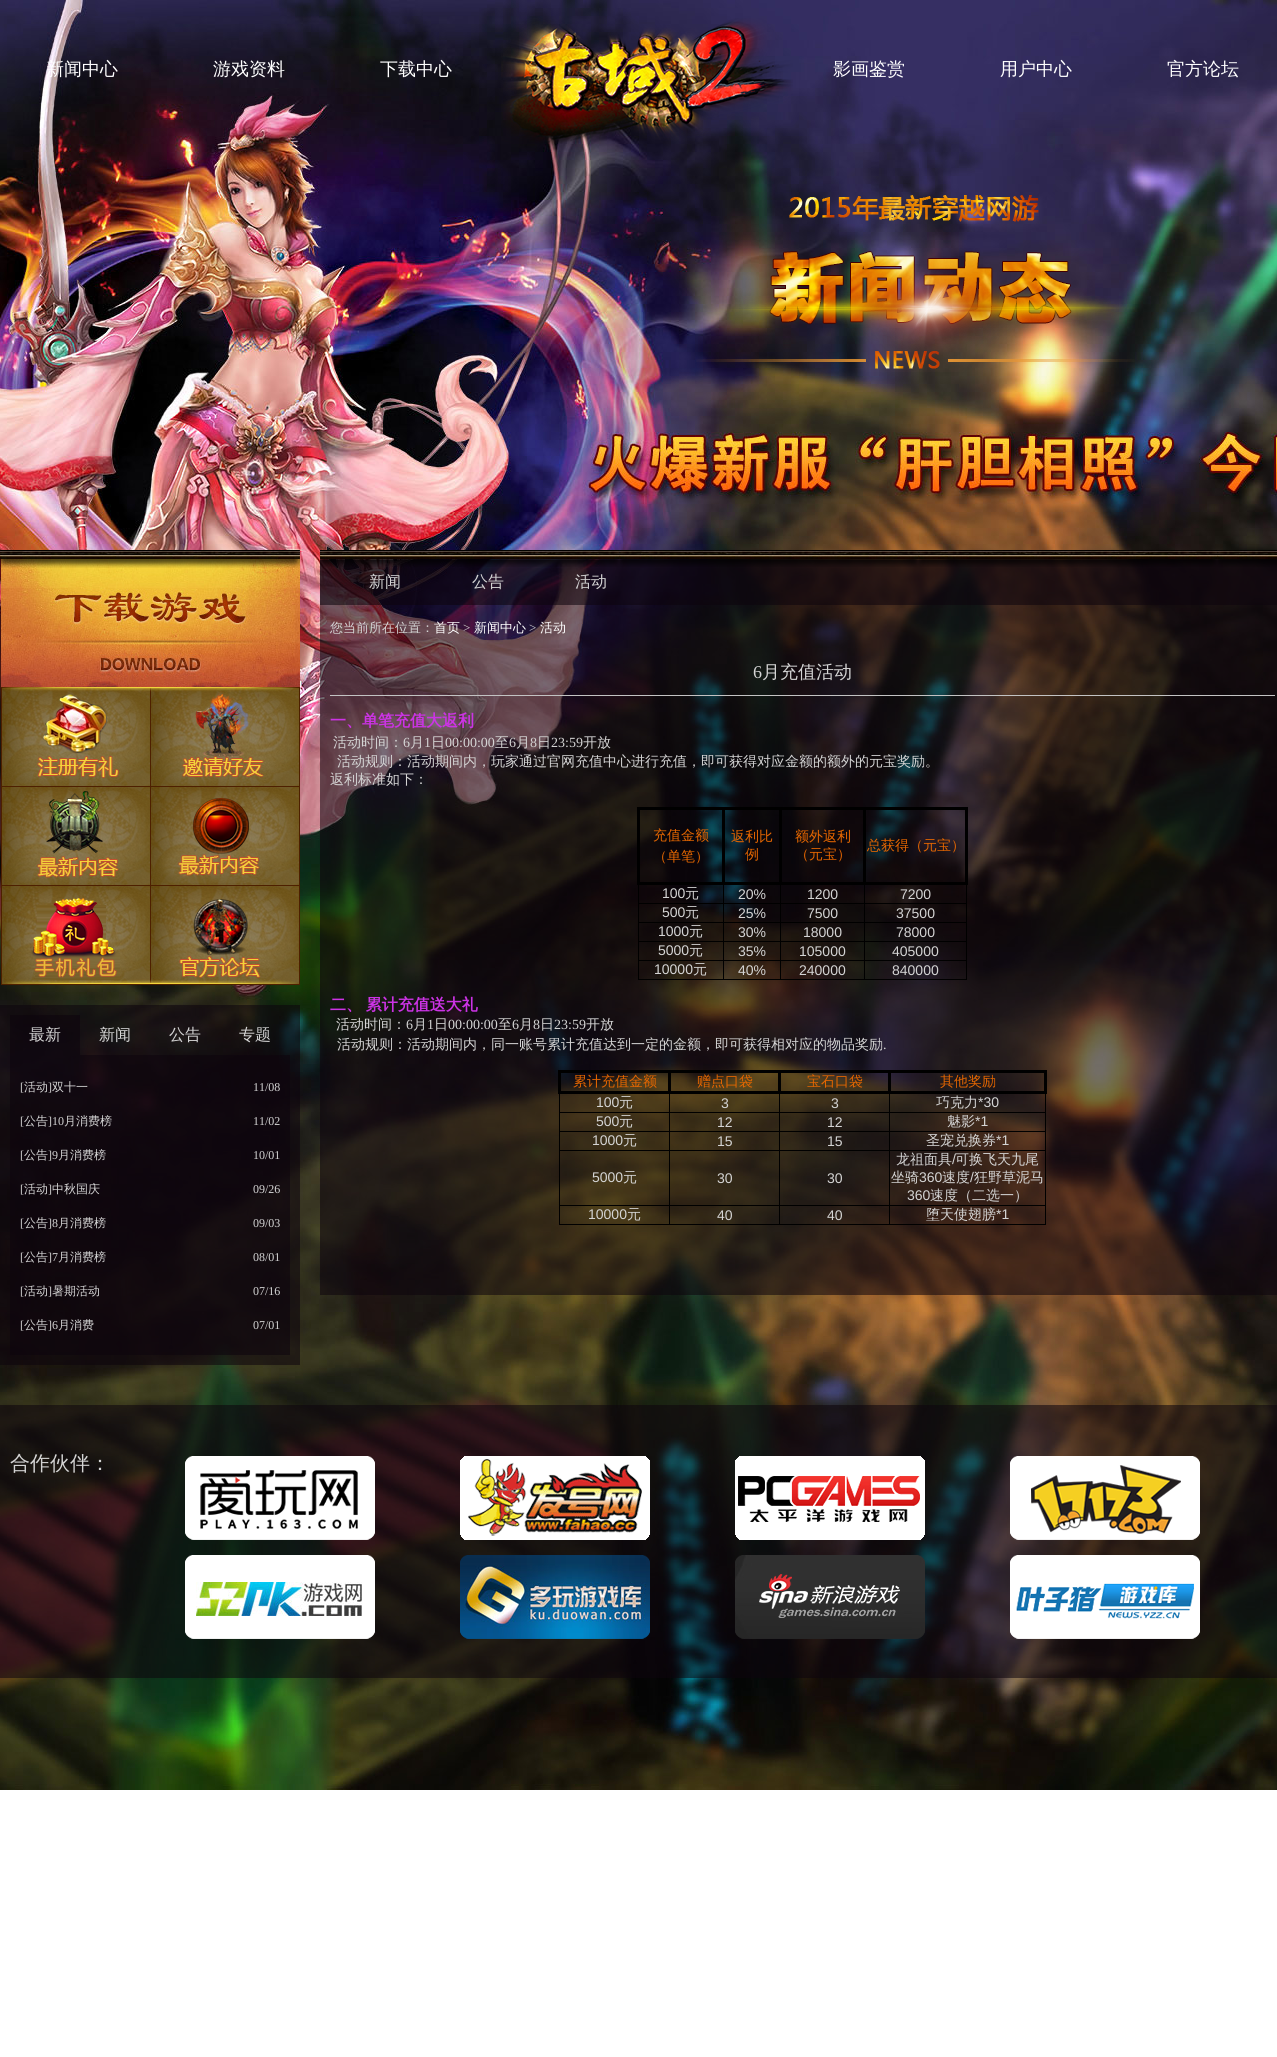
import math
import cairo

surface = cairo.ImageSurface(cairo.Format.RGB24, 1277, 2057)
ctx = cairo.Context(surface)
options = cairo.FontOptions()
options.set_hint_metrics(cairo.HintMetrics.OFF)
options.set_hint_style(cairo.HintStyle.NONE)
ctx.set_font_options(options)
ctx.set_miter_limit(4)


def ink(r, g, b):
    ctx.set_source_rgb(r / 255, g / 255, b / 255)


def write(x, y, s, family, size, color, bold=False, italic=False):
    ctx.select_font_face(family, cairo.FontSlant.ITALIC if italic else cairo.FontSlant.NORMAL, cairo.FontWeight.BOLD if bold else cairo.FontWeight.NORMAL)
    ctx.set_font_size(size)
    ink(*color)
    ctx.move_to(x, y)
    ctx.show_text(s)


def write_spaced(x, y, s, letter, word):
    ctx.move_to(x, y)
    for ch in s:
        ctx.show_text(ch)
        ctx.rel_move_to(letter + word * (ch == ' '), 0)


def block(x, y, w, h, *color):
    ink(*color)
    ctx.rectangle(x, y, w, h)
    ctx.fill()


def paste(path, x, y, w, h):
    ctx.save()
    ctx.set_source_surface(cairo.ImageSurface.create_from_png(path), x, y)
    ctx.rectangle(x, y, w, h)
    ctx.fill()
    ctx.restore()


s1 = dict(family="WenQuanYi Zen Hei Medium", size=18, color=(255, 255, 255))
s2 = dict(family="WenQuanYi Zen Hei Medium", size=16, color=(212, 212, 212))
s3 = dict(family="Liberation Serif", size=12, color=(212, 212, 212))
s4 = dict(family="WenQuanYi Zen Hei Medium", size=12, color=(212, 212, 212))
s5 = dict(family="WenQuanYi Zen Hei Medium", size=13, color=(212, 212, 212))
s6 = dict(family="WenQuanYi Zen Hei Medium", size=13, color=(255, 255, 255))
s7 = dict(family="Liberation Serif", size=13, color=(212, 212, 212))
s8 = dict(family="Liberation Serif", size=18, color=(212, 212, 212))
s9 = dict(family="WenQuanYi Zen Hei Medium", size=18, color=(212, 212, 212))
s10 = dict(family="WenQuanYi Zen Hei", size=16, color=(204, 51, 229), bold=True)
s11 = dict(family="WenQuanYi Zen Hei Medium", size=14, color=(212, 212, 212))
s12 = dict(family="Liberation Serif", size=14, color=(212, 212, 212))
s13 = dict(family="WenQuanYi Zen Hei Medium", size=14, color=(229, 102, 0))
s14 = dict(family="Liberation Sans", size=14, color=(212, 212, 212))
s15 = dict(family="WenQuanYi Zen Hei Medium", size=20, color=(212, 212, 212))

ink(255, 255, 255)
ctx.paint()
paste("pic1.png", 0, 0, 1277, 1790)
write(46, 75, "新闻中心", **s1)
write(213, 75, "游戏资料", **s1)
write(380, 75, "下载中心", **s1)
paste("pic2.png", 501, 18, 292, 133)
write(833, 75, "影画鉴赏", **s1)
write(1000, 75, "用户中心", **s1)
write(1167, 75, "官方论坛", **s1)
paste("pic3.png", 696, 195, 439, 177)
paste("pic5.png", 1, 557, 299, 428)
paste("pic4.png", 0, 550, 300, 18)
ctx.set_source_rgba(0.055, 0.02, 0.055, 0.56)
ctx.rectangle(0, 1005, 300, 360)
ctx.fill()
ctx.rectangle(10, 1015, 70, 40)
ctx.fill()
write(29, 1040, "最新", **s2)
write(99, 1040, "新闻", **s2)
write(169, 1040, "公告", **s2)
write(239, 1040, "专题", **s2)
ctx.set_source_rgba(0.055, 0.02, 0.055, 0.56)
ctx.rectangle(10, 1055, 280, 300)
ctx.fill()
write(20, 1091, "[", **s3)
write(24, 1091, "活动", **s4)
write(48, 1091, "]", **s3)
write(52, 1091, "双十一", **s4)
write(253, 1091, "11/08", **s3)
write(20, 1125, "[", **s3)
write(24, 1125, "公告", **s4)
write(48, 1125, "]10", **s3)
write(64, 1125, "月消费榜", **s4)
write(253, 1125, "11/02", **s3)
write(20, 1159, "[", **s3)
write(24, 1159, "公告", **s4)
write(48, 1159, "]9", **s3)
write(58, 1159, "月消费榜", **s4)
write(253, 1159, "10/01", **s3)
write(20, 1193, "[", **s3)
write(24, 1193, "活动", **s4)
write(48, 1193, "]", **s3)
write(52, 1193, "中秋国庆", **s4)
write(253, 1193, "09/26", **s3)
write(20, 1227, "[", **s3)
write(24, 1227, "公告", **s4)
write(48, 1227, "]8", **s3)
write(58, 1227, "月消费榜", **s4)
write(253, 1227, "09/03", **s3)
write(20, 1261, "[", **s3)
write(24, 1261, "公告", **s4)
write(48, 1261, "]7", **s3)
write(58, 1261, "月消费榜", **s4)
write(253, 1261, "08/01", **s3)
write(20, 1295, "[", **s3)
write(24, 1295, "活动", **s4)
write(48, 1295, "]", **s3)
write(52, 1295, "暑期活动", **s4)
write(253, 1295, "07/16", **s3)
write(20, 1329, "[", **s3)
write(24, 1329, "公告", **s4)
write(48, 1329, "]6", **s3)
write(58, 1329, "月消费", **s4)
write(253, 1329, "07/01", **s3)
ctx.set_source_rgba(0.055, 0.02, 0.055, 0.56)
ctx.rectangle(320, 550, 957, 745)
ctx.fill()
ctx.rectangle(320, 560, 957, 45)
ctx.fill()
paste("pic6.png", 320, 550, 957, 17)
write(369, 587, "新闻", **s2)
write(472, 587, "公告", **s2)
write(575, 587, "活动", **s2)
write(330, 632, "您当前所在位置：", **s5)
write(434, 632, "首页", **s6)
write(463, 632, ">", **s7)
write(474, 632, "新闻中心", **s6)
write(529, 632, ">", **s7)
write(540, 632, "活动", **s6)
block(330, 695, 945, 1, 195, 195, 195)
write(753, 678, "6", **s8)
write(762, 678, "月充值活动", **s9)
write(330, 726, "一、单笔充值大返利", **s10)
write(333, 747, "活动时间：", **s11)
write(403, 747, "6", **s12)
write(410, 747, "月", **s11)
write(424, 747, "1", **s12)
write(431, 747, "日", **s11)
write(445, 747, "00:00:00", **s12)
write(495, 747, "至", **s11)
write(509, 747, "6", **s12)
write(516, 747, "月", **s11)
write(530, 747, "8", **s12)
write(537, 747, "日", **s11)
write(551, 747, "23:59", **s12)
write(583, 747, "开放", **s11)
write(337, 766, "活动规则：活动期间内，玩家通过官网充值中心进行充值，即可获得对应金额的额外的元宝奖励。", **s11)
write(330, 784, "返利标准如下：", **s11)
block(863, 807, 105, 3, 0, 0, 0)
block(864, 903, 103, 1, 0, 0, 0)
block(864, 922, 103, 1, 0, 0, 0)
block(864, 941, 103, 1, 0, 0, 0)
block(864, 960, 103, 1, 0, 0, 0)
block(966, 960, 1, 20, 0, 0, 0)
block(966, 941, 1, 20, 0, 0, 0)
block(966, 922, 1, 20, 0, 0, 0)
block(966, 883, 1, 40, 0, 0, 0)
block(965, 807, 3, 78, 0, 0, 0)
block(864, 979, 103, 1, 0, 0, 0)
block(864, 960, 1, 20, 0, 0, 0)
block(780, 960, 85, 1, 0, 0, 0)
block(864, 941, 1, 20, 0, 0, 0)
block(780, 941, 85, 1, 0, 0, 0)
block(864, 922, 1, 20, 0, 0, 0)
block(780, 922, 85, 1, 0, 0, 0)
block(864, 903, 1, 20, 0, 0, 0)
block(780, 903, 85, 1, 0, 0, 0)
block(864, 883, 1, 21, 0, 0, 0)
block(863, 882, 105, 3, 0, 0, 0)
block(863, 807, 3, 78, 0, 0, 0)
block(779, 807, 87, 3, 0, 0, 0)
block(780, 979, 85, 1, 0, 0, 0)
block(780, 960, 1, 20, 0, 0, 0)
block(723, 960, 58, 1, 0, 0, 0)
block(780, 941, 1, 20, 0, 0, 0)
block(723, 941, 58, 1, 0, 0, 0)
block(780, 922, 1, 20, 0, 0, 0)
block(723, 922, 58, 1, 0, 0, 0)
block(780, 903, 1, 20, 0, 0, 0)
block(723, 903, 58, 1, 0, 0, 0)
block(780, 883, 1, 21, 0, 0, 0)
block(779, 882, 87, 3, 0, 0, 0)
block(779, 807, 3, 78, 0, 0, 0)
block(722, 807, 60, 3, 0, 0, 0)
block(723, 979, 58, 1, 0, 0, 0)
block(723, 960, 1, 20, 0, 0, 0)
block(638, 960, 86, 1, 0, 0, 0)
block(723, 941, 1, 20, 0, 0, 0)
block(638, 941, 86, 1, 0, 0, 0)
block(723, 922, 1, 20, 0, 0, 0)
block(638, 922, 86, 1, 0, 0, 0)
block(723, 903, 1, 20, 0, 0, 0)
block(638, 903, 86, 1, 0, 0, 0)
block(723, 883, 1, 21, 0, 0, 0)
block(722, 882, 60, 3, 0, 0, 0)
block(722, 807, 3, 78, 0, 0, 0)
block(637, 807, 88, 3, 0, 0, 0)
block(638, 979, 86, 1, 0, 0, 0)
block(638, 960, 1, 20, 0, 0, 0)
block(638, 941, 1, 20, 0, 0, 0)
block(638, 922, 1, 20, 0, 0, 0)
block(638, 883, 1, 40, 0, 0, 0)
block(637, 882, 88, 3, 0, 0, 0)
block(637, 807, 3, 78, 0, 0, 0)
write(653, 840, "充值金额", **s13)
write(653, 861, "（单笔）", **s13)
write(731, 841, "返利比", **s13)
write(745, 859, "例", **s13)
write(795, 841, "额外返利", **s13)
write(795, 859, "（元宝）", **s13)
write(867, 850, "总获得（元宝）", **s13)
write(662, 898, "100", **s14)
write(685, 898, "元", **s11)
write(738, 899, "20%", **s14)
write(807, 899, "1200", **s14)
write(900, 899, "7200", **s14)
write(662, 917, "500", **s14)
write(685, 917, "元", **s11)
write(738, 918, "25%", **s14)
write(807, 918, "7500", **s14)
write(896, 918, "37500", **s14)
write(658, 936, "1000", **s14)
write(689, 936, "元", **s11)
write(738, 937, "30%", **s14)
write(803, 937, "18000", **s14)
write(896, 937, "78000", **s14)
write(658, 955, "5000", **s14)
write(689, 955, "元", **s11)
write(738, 956, "35%", **s14)
write(799, 956, "105000", **s14)
write(892, 956, "405000", **s14)
write(654, 974, "10000", **s14)
write(693, 974, "元", **s11)
write(738, 975, "40%", **s14)
write(799, 975, "240000", **s14)
write(892, 975, "840000", **s14)
ctx.select_font_face("WenQuanYi Zen Hei", cairo.FontSlant.NORMAL, cairo.FontWeight.BOLD)
ctx.set_font_size(16)
ink(204, 51, 229)
write_spaced(330, 1010, "二、 累计充值送大礼", 0, -1)
write(336, 1029, "活动时间：", **s11)
write(406, 1029, "6", **s12)
write(413, 1029, "月", **s11)
write(427, 1029, "1", **s12)
write(434, 1029, "日", **s11)
write(448, 1029, "00:00:00", **s12)
write(498, 1029, "至", **s11)
write(512, 1029, "6", **s12)
write(519, 1029, "月", **s11)
write(533, 1029, "8", **s12)
write(540, 1029, "日", **s11)
write(554, 1029, "23:59", **s12)
write(586, 1029, "开放", **s11)
write(337, 1049, "活动规则：活动期间内，同一账号累计充值达到一定的金额，即可获得相对应的物品奖励", **s11)
write(883, 1049, ".", **s12)
block(888, 1070, 159, 3, 0, 0, 0)
block(889, 1112, 157, 1, 0, 0, 0)
block(889, 1131, 157, 1, 0, 0, 0)
block(889, 1150, 157, 1, 0, 0, 0)
block(889, 1205, 157, 1, 0, 0, 0)
block(1045, 1205, 1, 20, 0, 0, 0)
block(1045, 1150, 1, 56, 0, 0, 0)
block(1045, 1131, 1, 20, 0, 0, 0)
block(1045, 1092, 1, 40, 0, 0, 0)
block(1044, 1070, 3, 24, 0, 0, 0)
block(889, 1224, 157, 1, 0, 0, 0)
block(889, 1205, 1, 20, 0, 0, 0)
block(779, 1205, 111, 1, 0, 0, 0)
block(889, 1150, 1, 56, 0, 0, 0)
block(779, 1150, 111, 1, 0, 0, 0)
block(889, 1131, 1, 20, 0, 0, 0)
block(779, 1131, 111, 1, 0, 0, 0)
block(889, 1112, 1, 20, 0, 0, 0)
block(779, 1112, 111, 1, 0, 0, 0)
block(889, 1092, 1, 21, 0, 0, 0)
block(888, 1091, 159, 3, 0, 0, 0)
block(888, 1070, 3, 24, 0, 0, 0)
block(778, 1070, 113, 3, 0, 0, 0)
block(779, 1224, 111, 1, 0, 0, 0)
block(779, 1205, 1, 20, 0, 0, 0)
block(669, 1205, 111, 1, 0, 0, 0)
block(779, 1150, 1, 56, 0, 0, 0)
block(669, 1150, 111, 1, 0, 0, 0)
block(779, 1131, 1, 20, 0, 0, 0)
block(669, 1131, 111, 1, 0, 0, 0)
block(779, 1112, 1, 20, 0, 0, 0)
block(669, 1112, 111, 1, 0, 0, 0)
block(779, 1092, 1, 21, 0, 0, 0)
block(778, 1091, 113, 3, 0, 0, 0)
block(778, 1070, 3, 24, 0, 0, 0)
block(668, 1070, 113, 3, 0, 0, 0)
block(669, 1224, 111, 1, 0, 0, 0)
block(669, 1205, 1, 20, 0, 0, 0)
block(559, 1205, 111, 1, 0, 0, 0)
block(669, 1150, 1, 56, 0, 0, 0)
block(559, 1150, 111, 1, 0, 0, 0)
block(669, 1131, 1, 20, 0, 0, 0)
block(559, 1131, 111, 1, 0, 0, 0)
block(669, 1112, 1, 20, 0, 0, 0)
block(559, 1112, 111, 1, 0, 0, 0)
block(669, 1092, 1, 21, 0, 0, 0)
block(668, 1091, 113, 3, 0, 0, 0)
block(668, 1070, 3, 24, 0, 0, 0)
block(558, 1070, 113, 3, 0, 0, 0)
block(559, 1224, 111, 1, 0, 0, 0)
block(559, 1205, 1, 20, 0, 0, 0)
block(559, 1150, 1, 56, 0, 0, 0)
block(559, 1131, 1, 20, 0, 0, 0)
block(559, 1092, 1, 40, 0, 0, 0)
block(558, 1091, 113, 3, 0, 0, 0)
block(558, 1070, 3, 24, 0, 0, 0)
write(573, 1086, "累计充值金额", **s13)
write(697, 1086, "赠点口袋", **s13)
write(807, 1086, "宝石口袋", **s13)
write(940, 1086, "其他奖励", **s13)
write(596, 1107, "100", **s14)
write(619, 1107, "元", **s11)
write(721, 1108, "3", **s14)
write(831, 1108, "3", **s14)
write(936, 1107, "巧克力", **s11)
write(978, 1107, "*30", **s14)
write(596, 1126, "500", **s14)
write(619, 1126, "元", **s11)
write(717, 1127, "12", **s14)
write(827, 1127, "12", **s14)
write(947, 1126, "魅影", **s11)
write(975, 1126, "*1", **s14)
write(592, 1145, "1000", **s14)
write(623, 1145, "元", **s11)
write(717, 1146, "15", **s14)
write(827, 1146, "15", **s14)
write(926, 1145, "圣宠兑换券", **s11)
write(996, 1145, "*1", **s14)
write(592, 1182, "5000", **s14)
write(623, 1182, "元", **s11)
write(717, 1183, "30", **s14)
write(827, 1183, "30", **s14)
write(896, 1164, "龙祖面具", **s11)
write(952, 1164, "/", **s14)
write(955, 1164, "可换飞天九尾", **s11)
write(891, 1182, "坐骑", **s11)
write(919, 1182, "360", **s14)
write(942, 1182, "速度", **s11)
write(970, 1182, "/", **s14)
write(974, 1182, "狂野草泥马", **s11)
write(907, 1200, "360", **s14)
write(930, 1200, "速度（二选一）", **s11)
write(588, 1219, "10000", **s14)
write(627, 1219, "元", **s11)
write(717, 1220, "40", **s14)
write(827, 1220, "40", **s14)
write(926, 1219, "堕天使翅膀", **s11)
write(996, 1219, "*1", **s14)
ctx.set_source_rgba(0.055, 0.02, 0.055, 0.56)
ctx.rectangle(0, 1405, 1277, 273)
ctx.fill()
write(10, 1470, "合作伙伴：", **s15)
paste("pic7.png", 185, 1456, 190, 84)
paste("pic8.png", 460, 1456, 190, 84)
paste("pic9.png", 735, 1456, 190, 84)
paste("pic10.png", 1010, 1456, 190, 84)
paste("pic11.png", 185, 1555, 190, 84)
paste("pic12.png", 460, 1555, 190, 84)
paste("pic13.png", 735, 1555, 190, 84)
paste("pic14.png", 1010, 1555, 190, 84)
surface.write_to_png("screenshot.png")
